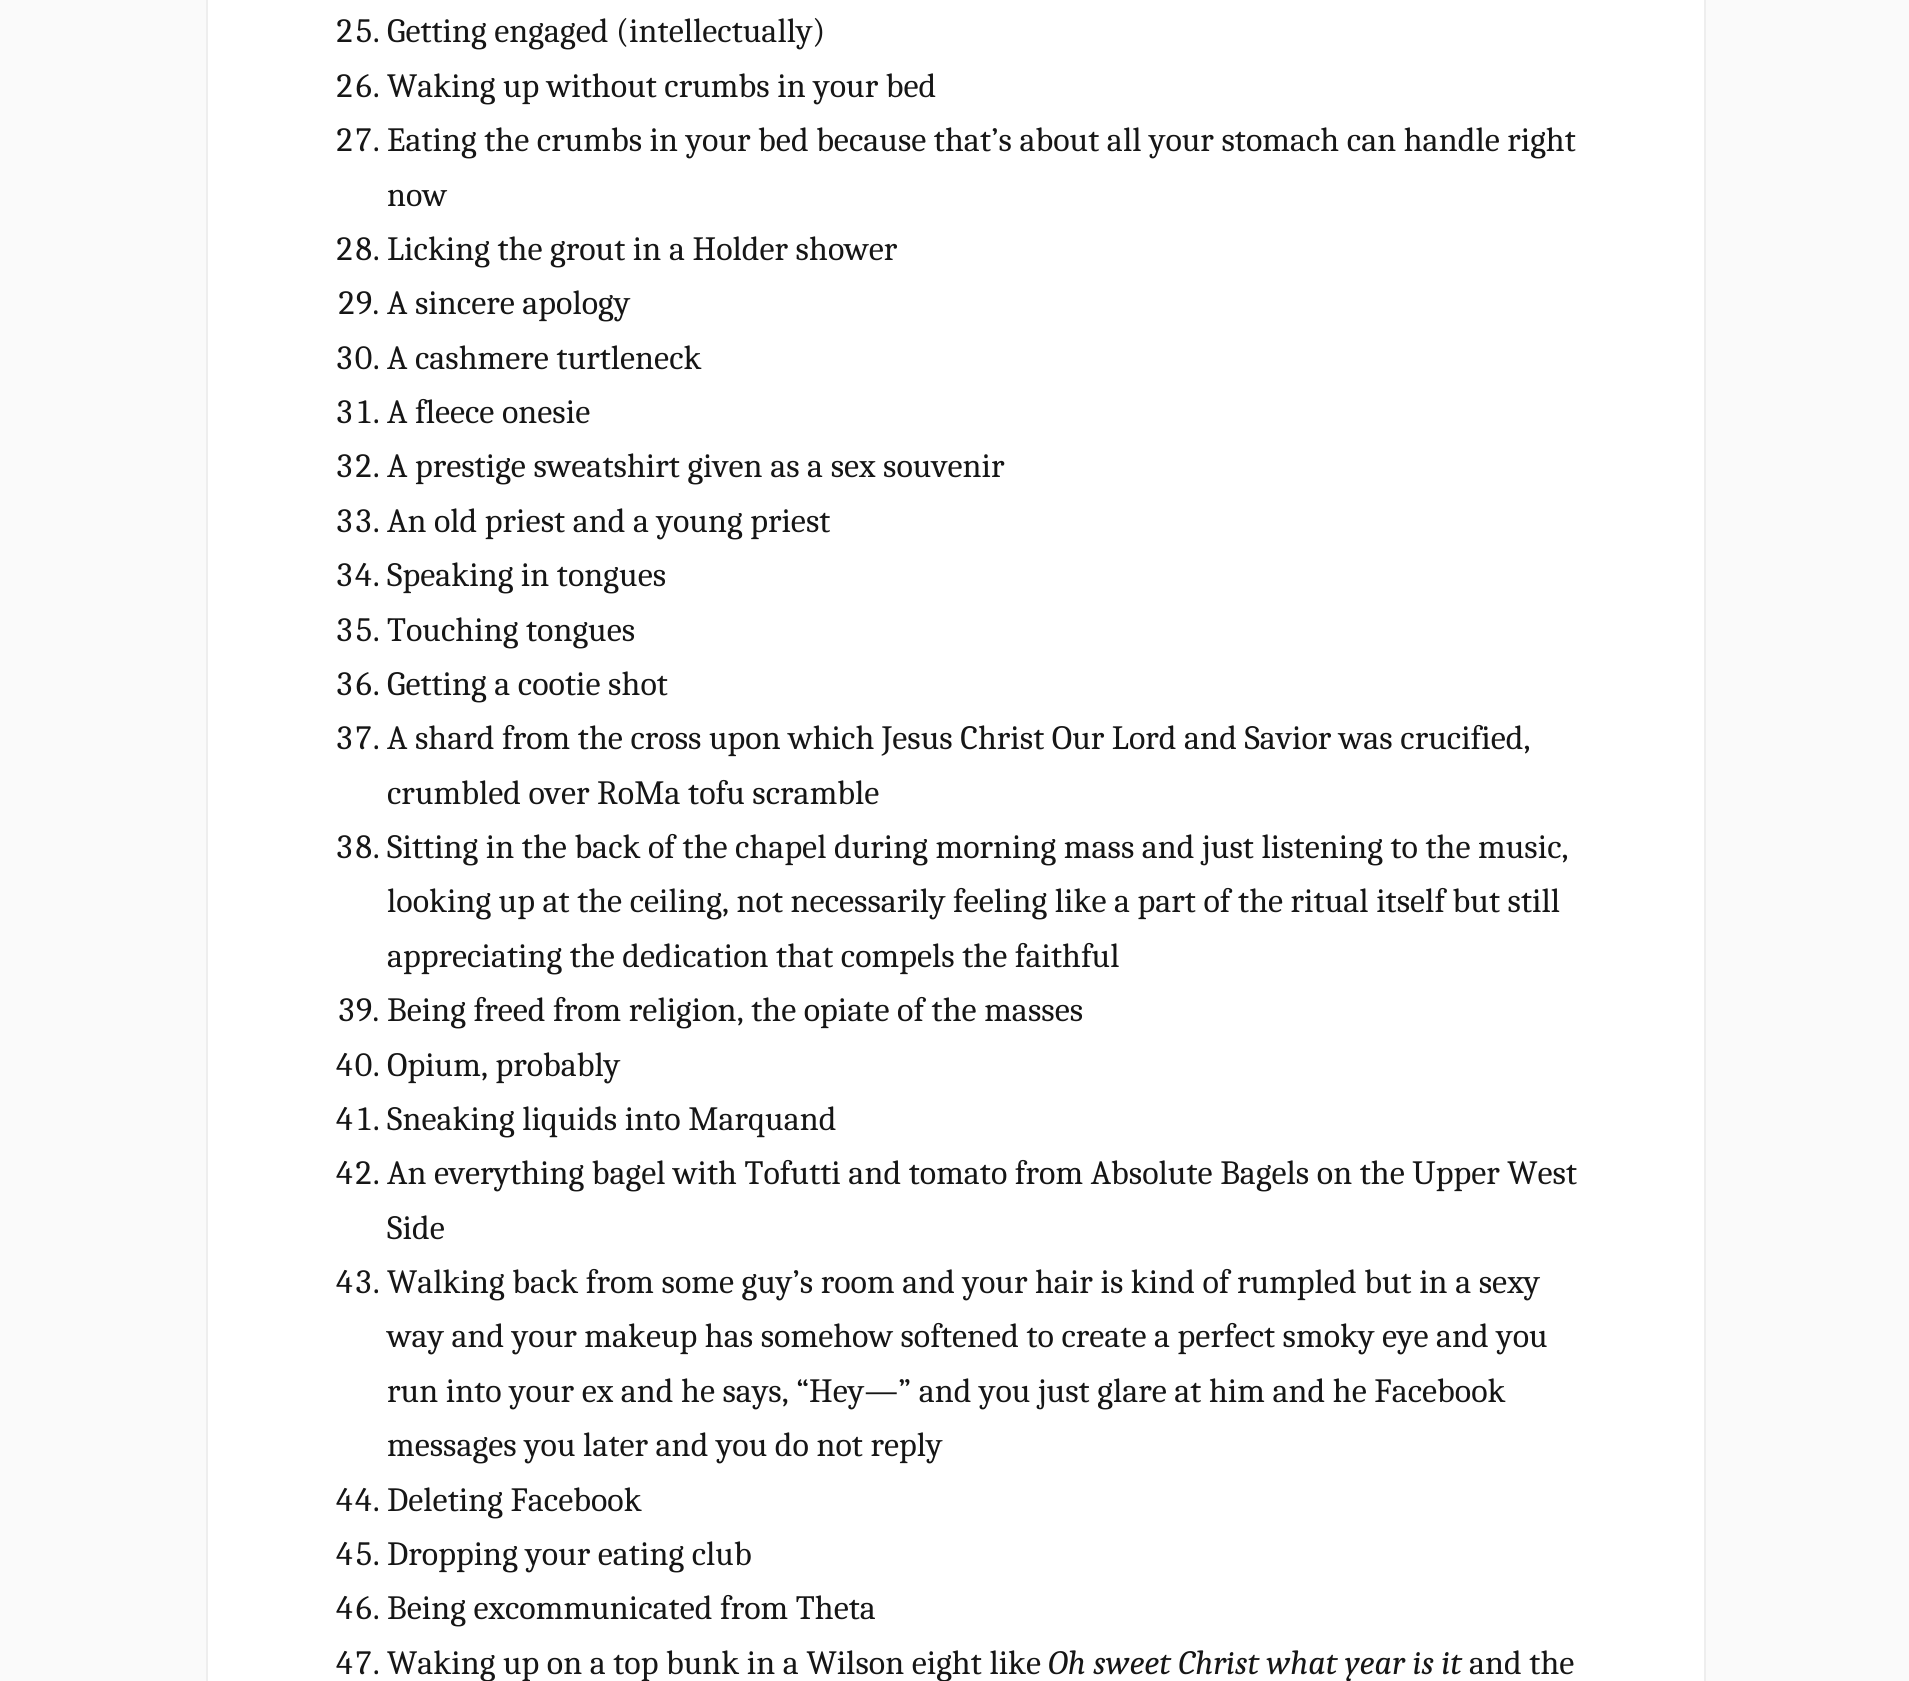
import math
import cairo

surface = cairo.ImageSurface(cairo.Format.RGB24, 1909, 1681)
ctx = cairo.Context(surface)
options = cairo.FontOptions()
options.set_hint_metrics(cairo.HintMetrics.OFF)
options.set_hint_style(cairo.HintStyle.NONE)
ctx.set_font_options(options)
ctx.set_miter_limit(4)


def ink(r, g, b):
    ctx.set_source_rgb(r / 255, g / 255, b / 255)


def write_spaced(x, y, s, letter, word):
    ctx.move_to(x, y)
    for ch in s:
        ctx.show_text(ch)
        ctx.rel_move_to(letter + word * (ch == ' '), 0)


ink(250, 250, 250)
ctx.paint()
ink(255, 255, 255)
ctx.rectangle(207, -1, 1498, 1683)
ctx.fill_preserve()
ink(238, 238, 238)
ctx.stroke()
ctx.select_font_face("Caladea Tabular")
ctx.set_font_size(34)
ink(22, 22, 22)
write_spaced(335, 42, "25.", 0.05, 0)
ctx.select_font_face("Caladea")
write_spaced(387, 42, "Getting engaged (intellectually)", 0.05, 0)
ctx.select_font_face("Caladea Tabular")
write_spaced(335, 97, "26.", 0.05, 0)
ctx.select_font_face("Caladea")
write_spaced(387, 97, "Waking up without crumbs in your bed", 0.05, 0)
ctx.select_font_face("Caladea Tabular")
write_spaced(335, 151, "27.", 0.05, 0)
ctx.select_font_face("Caladea")
write_spaced(387, 151, "Eating the crumbs in your bed because that’s about all your stomach can handle right", 0.05, 0)
write_spaced(387, 206, "now", 0.05, 0)
ctx.select_font_face("Caladea Tabular")
write_spaced(335, 260, "28.", 0.05, 0)
ctx.select_font_face("Caladea")
write_spaced(387, 260, "Licking the grout in a Holder shower", 0.05, 0)
ctx.select_font_face("Caladea Tabular")
write_spaced(337, 314, "29.", 0.05, 0)
ctx.select_font_face("Caladea")
write_spaced(387, 314, "A sincere apology", 0.05, 0)
ctx.select_font_face("Caladea Tabular")
write_spaced(335, 369, "30.", 0.05, 0)
ctx.select_font_face("Caladea")
write_spaced(387, 369, "A cashmere turtleneck", 0.05, 0)
ctx.select_font_face("Caladea Tabular")
write_spaced(335, 423, "31.", 0.05, 0)
ctx.select_font_face("Caladea")
write_spaced(387, 423, "A fleece onesie", 0.05, 0)
ctx.select_font_face("Caladea Tabular")
write_spaced(335, 477, "32.", 0.05, 0)
ctx.select_font_face("Caladea")
write_spaced(387, 477, "A prestige sweatshirt given as a sex souvenir", 0.05, 0)
ctx.select_font_face("Caladea Tabular")
write_spaced(335, 532, "33.", 0.05, 0)
ctx.select_font_face("Caladea")
write_spaced(387, 532, "An old priest and a young priest", 0.05, 0)
ctx.select_font_face("Caladea Tabular")
write_spaced(335, 586, "34.", 0.05, 0)
ctx.select_font_face("Caladea")
write_spaced(387, 586, "Speaking in tongues", 0.05, 0)
ctx.select_font_face("Caladea Tabular")
write_spaced(335, 641, "35.", 0.05, 0)
ctx.select_font_face("Caladea")
write_spaced(387, 641, "Touching tongues", 0.05, 0)
ctx.select_font_face("Caladea Tabular")
write_spaced(335, 695, "36.", 0.05, 0)
ctx.select_font_face("Caladea")
write_spaced(387, 695, "Getting a cootie shot", 0.05, 0)
ctx.select_font_face("Caladea Tabular")
write_spaced(335, 749, "37.", 0.05, 0)
ctx.select_font_face("Caladea")
write_spaced(387, 749, "A shard from the cross upon which Jesus Christ Our Lord and Savior was crucified,", 0.05, 0)
write_spaced(387, 804, "crumbled over RoMa tofu scramble", 0.05, 0)
ctx.select_font_face("Caladea Tabular")
write_spaced(335, 858, "38.", 0.05, 0)
ctx.select_font_face("Caladea")
write_spaced(387, 858, "Sitting in the back of the chapel during morning mass and just listening to the music,", 0.05, 0)
write_spaced(387, 912, "looking up at the ceiling, not necessarily feeling like a part of the ritual itself but still", 0.05, 0)
write_spaced(387, 967, "appreciating the dedication that compels the faithful", 0.05, 0)
ctx.select_font_face("Caladea Tabular")
write_spaced(337, 1021, "39.", 0.05, 0)
ctx.select_font_face("Caladea")
write_spaced(387, 1021, "Being freed from religion, the opiate of the masses", 0.05, 0)
ctx.select_font_face("Caladea Tabular")
write_spaced(335, 1076, "40.", 0.05, 0)
ctx.select_font_face("Caladea")
write_spaced(387, 1076, "Opium, probably", 0.05, 0)
ctx.select_font_face("Caladea Tabular")
write_spaced(335, 1130, "41.", 0.05, 0)
ctx.select_font_face("Caladea")
write_spaced(387, 1130, "Sneaking liquids into Marquand", 0.05, 0)
ctx.select_font_face("Caladea Tabular")
write_spaced(335, 1184, "42.", 0.05, 0)
ctx.select_font_face("Caladea")
write_spaced(387, 1184, "An everything bagel with Tofutti and tomato from Absolute Bagels on the Upper West", 0.05, 0)
write_spaced(387, 1239, "Side", 0.05, 0)
ctx.select_font_face("Caladea Tabular")
write_spaced(335, 1293, "43.", 0.05, 0)
ctx.select_font_face("Caladea")
write_spaced(387, 1293, "Walking back from some guy’s room and your hair is kind of rumpled but in a sexy", 0.05, 0)
write_spaced(387, 1347, "way and your makeup has somehow softened to create a perfect smoky eye and you", 0.05, 0)
write_spaced(387, 1402, "run into your ex and he says, “Hey—” and you just glare at him and he Facebook", 0.05, 0)
write_spaced(387, 1456, "messages you later and you do not reply", 0.05, 0)
ctx.select_font_face("Caladea Tabular")
write_spaced(335, 1511, "44.", 0.05, 0)
ctx.select_font_face("Caladea")
write_spaced(387, 1511, "Deleting Facebook", 0.05, 0)
ctx.select_font_face("Caladea Tabular")
write_spaced(335, 1565, "45.", 0.05, 0)
ctx.select_font_face("Caladea")
write_spaced(387, 1565, "Dropping your eating club", 0.05, 0)
ctx.select_font_face("Caladea Tabular")
write_spaced(335, 1619, "46.", 0.05, 0)
ctx.select_font_face("Caladea")
write_spaced(387, 1619, "Being excommunicated from Theta", 0.05, 0)
ctx.select_font_face("Caladea Tabular")
write_spaced(335, 1674, "47.", 0.05, 0)
ctx.select_font_face("Caladea")
write_spaced(387, 1674, "Waking up on a top bunk in a Wilson eight like", 0.05, 0)
ctx.select_font_face("Caladea", cairo.FontSlant.ITALIC)
write_spaced(1048, 1674, "Oh sweet Christ what year is it", 0.05, 0)
ctx.select_font_face("Caladea")
write_spaced(1469, 1674, "and the", 0.05, 0)
surface.write_to_png("screenshot.png")
